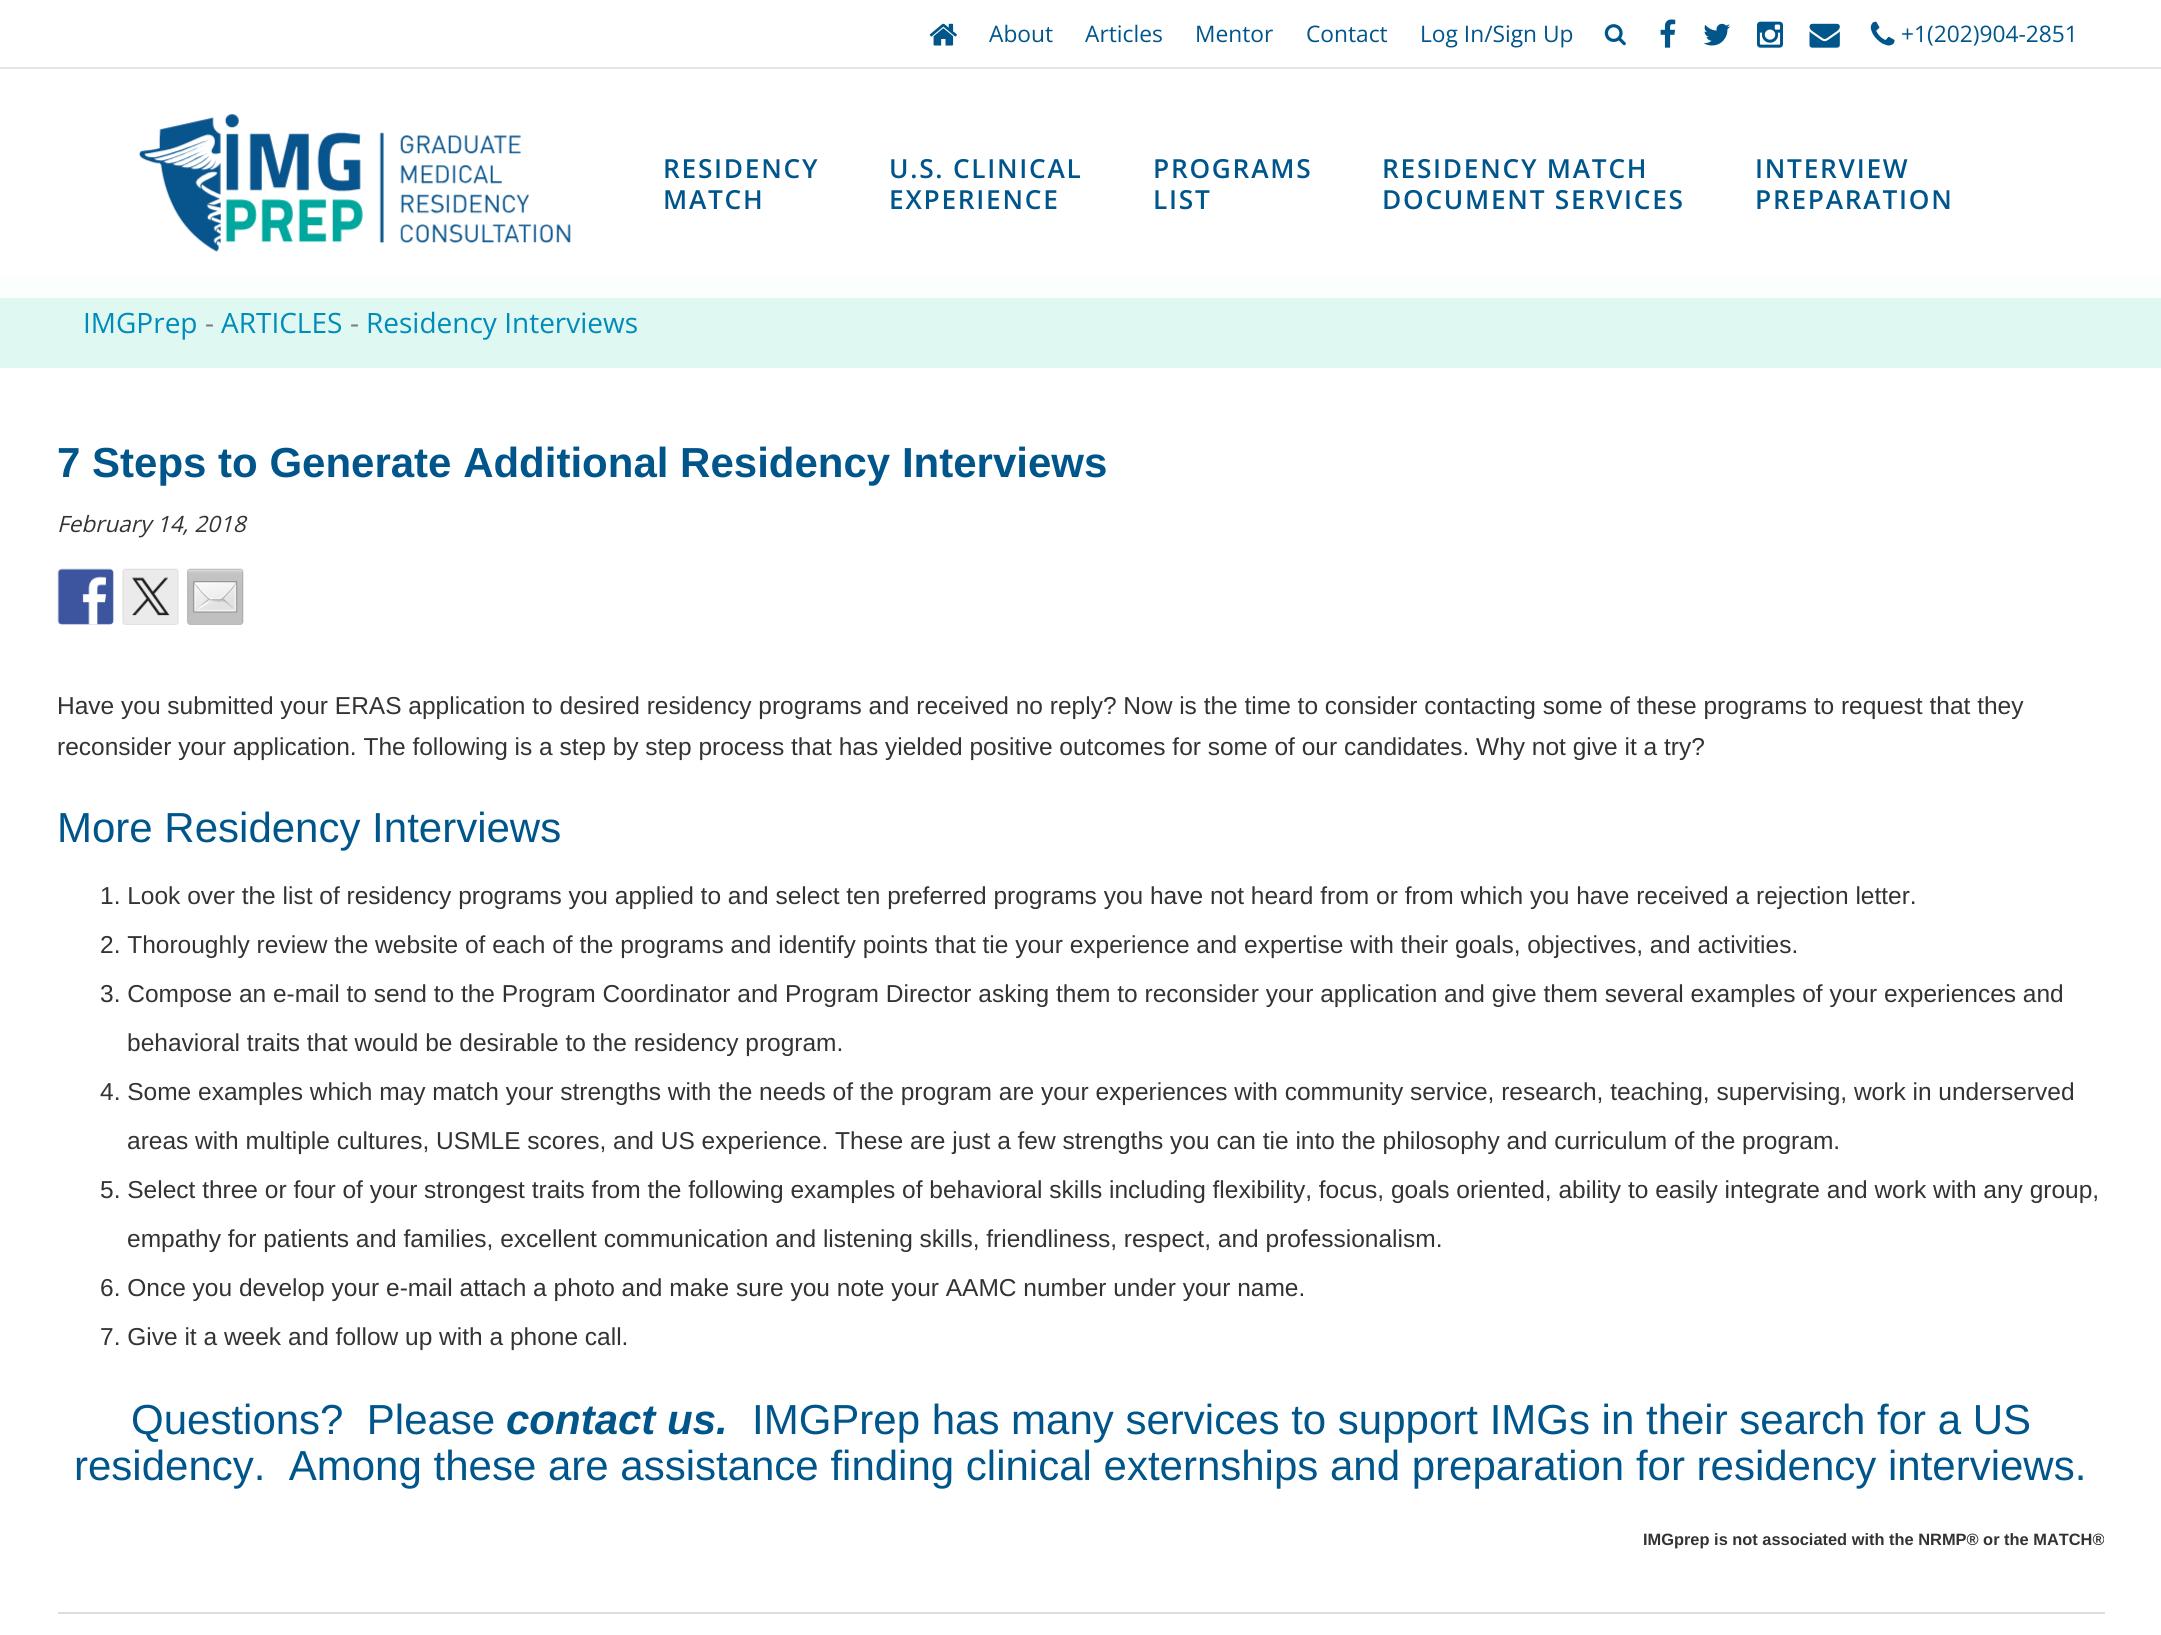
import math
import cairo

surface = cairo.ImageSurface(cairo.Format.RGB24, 2161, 1635)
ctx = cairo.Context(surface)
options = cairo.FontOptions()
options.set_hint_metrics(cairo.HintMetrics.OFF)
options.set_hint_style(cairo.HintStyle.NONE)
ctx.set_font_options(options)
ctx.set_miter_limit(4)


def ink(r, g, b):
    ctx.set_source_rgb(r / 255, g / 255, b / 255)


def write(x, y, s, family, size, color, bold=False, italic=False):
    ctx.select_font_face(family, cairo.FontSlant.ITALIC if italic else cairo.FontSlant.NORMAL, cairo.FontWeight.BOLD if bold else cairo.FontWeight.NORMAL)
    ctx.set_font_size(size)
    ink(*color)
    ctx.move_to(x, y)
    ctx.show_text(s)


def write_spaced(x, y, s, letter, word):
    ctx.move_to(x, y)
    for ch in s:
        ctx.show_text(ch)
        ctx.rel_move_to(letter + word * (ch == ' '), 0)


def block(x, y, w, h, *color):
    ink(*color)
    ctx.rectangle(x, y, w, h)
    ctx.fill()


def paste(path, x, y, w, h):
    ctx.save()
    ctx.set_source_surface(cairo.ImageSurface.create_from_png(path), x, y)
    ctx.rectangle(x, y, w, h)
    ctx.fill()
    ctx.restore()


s1 = dict(family="Open Sans", size=22.75, color=(0, 85, 139))
s2 = dict(family="Open Sans", size=28, color=(0, 140, 186))
s3 = dict(family="Open Sans", size=28, color=(123, 124, 124))
s4 = dict(family="Liberation Sans", size=42, color=(0, 85, 139), bold=True)
s5 = dict(family="Open Sans", size=22.5, color=(51, 51, 51), italic=True)
s6 = dict(family="Liberation Sans", size=24.5, color=(51, 51, 51))
s7 = dict(family="Liberation Sans", size=42, color=(0, 85, 139))
s8 = dict(family="Liberation Sans", size=42, color=(0, 85, 139), bold=True, italic=True)
s9 = dict(family="Liberation Sans", size=16.4, color=(51, 51, 51), bold=True)

ink(255, 255, 255)
ctx.paint()
block(0, 67, 2161, 2, 229, 229, 229)
paste("pic1.png", 929, 23, 28, 23)
write(989, 42, "About", **s1)
write(1085, 42, "Articles", **s1)
write(1195, 42, "Mentor", **s1)
write(1306, 42, "Contact", **s1)
write(1420, 42, "Log In/Sign Up", **s1)
paste("pic2.png", 1604, 24, 22, 22)
paste("pic3.png", 1660, 19, 16, 29)
paste("pic4.png", 1703, 23, 27, 23)
paste("pic5.png", 1757, 21, 26, 27)
paste("pic6.png", 1809, 23, 31, 25)
paste("pic7.png", 1870, 21, 25, 25)
write(1901, 42, "+1(202)904-2851", **s1)
paste("pic8.png", 139, 114, 432, 138)
ctx.select_font_face("Open Sans SemiBold")
ctx.set_font_size(26.25)
write_spaced(663, 178, "RESIDENCY", 1.75, 0)
write_spaced(663, 209, "MATCH", 1.75, 0)
write_spaced(889, 178, "U.S. CLINICAL", 1.75, 0)
write_spaced(889, 209, "EXPERIENCE", 1.75, 0)
write_spaced(1153, 178, "PROGRAMS", 1.75, 0)
write_spaced(1153, 209, "LIST", 1.75, 0)
write_spaced(1382, 178, "RESIDENCY MATCH", 1.75, 0)
write_spaced(1382, 209, "DOCUMENT SERVICES", 1.75, 0)
write_spaced(1755, 178, "INTERVIEW", 1.75, 0)
write_spaced(1755, 209, "PREPARATION", 1.75, 0)
block(0, 298, 2161, 70, 224, 248, 242)
block(0, 277, 2161, 21, 250, 254, 253)
write(83, 333, "IMGPrep", **s2)
write(205, 333, "-", **s3)
write(221, 333, "ARTICLES", **s2)
write(350, 333, "-", **s3)
write(366, 333, "Residency Interviews", **s2)
write(57, 477, "7 Steps to Generate Additional Residency Interviews", **s4)
write(57, 532, "February 14, 2018", **s5)
paste("pic9.png", 57, 568, 57, 57)
paste("pic10.png", 122, 568, 57, 57)
paste("pic11.png", 187, 568, 57, 57)
write(57, 714, "Have you submitted your ERAS application to desired residency programs and received no reply? Now is the time to consider contacting some of these programs to request that they", **s6)
write(57, 755, "reconsider your application. The following is a step by step process that has yielded positive outcomes for some of our candidates. Why not give it a try?", **s6)
write(57, 842, "More Residency Interviews", **s7)
write(100, 904, "1. Look over the list of residency programs you applied to and select ten preferred programs you have not heard from or from which you have received a rejection letter.", **s6)
write(100, 953, "2. Thoroughly review the website of each of the programs and identify points that tie your experience and expertise with their goals, objectives, and activities.", **s6)
write(100, 1002, "3. Compose an e-mail to send to the Program Coordinator and Program Director asking them to reconsider your application and give them several examples of your experiences and", **s6)
write(127, 1051, "behavioral traits that would be desirable to the residency program.", **s6)
write(100, 1100, "4. Some examples which may match your strengths with the needs of the program are your experiences with community service, research, teaching, supervising, work in underserved", **s6)
write(127, 1149, "areas with multiple cultures, USMLE scores, and US experience. These are just a few strengths you can tie into the philosophy and curriculum of the program.", **s6)
write(100, 1198, "5. Select three or four of your strongest traits from the following examples of behavioral skills including flexibility, focus, goals oriented, ability to easily integrate and work with any group,", **s6)
write(127, 1247, "empathy for patients and families, excellent communication and listening skills, friendliness, respect, and professionalism.", **s6)
write(100, 1296, "6. Once you develop your e-mail attach a photo and make sure you note your AAMC number under your name.", **s6)
write(100, 1345, "7. Give it a week and follow up with a phone call.", **s6)
write(131, 1434, "Questions?  Please", **s7)
write(506, 1434, "contact us.", **s8)
write(752, 1434, "IMGPrep has many services to support IMGs in their search for a US", **s7)
write(74, 1480, "residency.  Among these are assistance finding clinical externships and preparation for residency interviews.", **s7)
write(1643, 1545, "IMGprep is not associated with the NRMP® or the MATCH®", **s9)
block(58, 1612, 2047, 2, 221, 221, 221)
surface.write_to_png("screenshot.png")
